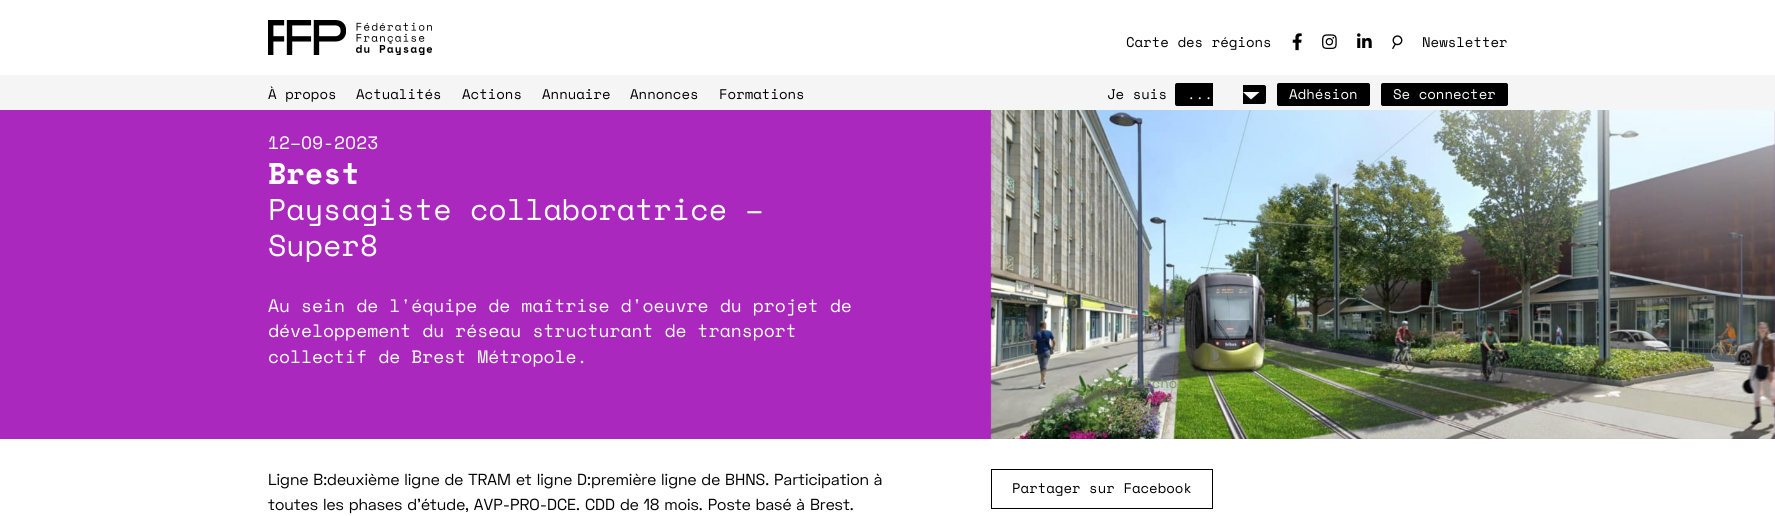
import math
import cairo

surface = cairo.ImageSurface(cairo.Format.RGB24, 1775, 516)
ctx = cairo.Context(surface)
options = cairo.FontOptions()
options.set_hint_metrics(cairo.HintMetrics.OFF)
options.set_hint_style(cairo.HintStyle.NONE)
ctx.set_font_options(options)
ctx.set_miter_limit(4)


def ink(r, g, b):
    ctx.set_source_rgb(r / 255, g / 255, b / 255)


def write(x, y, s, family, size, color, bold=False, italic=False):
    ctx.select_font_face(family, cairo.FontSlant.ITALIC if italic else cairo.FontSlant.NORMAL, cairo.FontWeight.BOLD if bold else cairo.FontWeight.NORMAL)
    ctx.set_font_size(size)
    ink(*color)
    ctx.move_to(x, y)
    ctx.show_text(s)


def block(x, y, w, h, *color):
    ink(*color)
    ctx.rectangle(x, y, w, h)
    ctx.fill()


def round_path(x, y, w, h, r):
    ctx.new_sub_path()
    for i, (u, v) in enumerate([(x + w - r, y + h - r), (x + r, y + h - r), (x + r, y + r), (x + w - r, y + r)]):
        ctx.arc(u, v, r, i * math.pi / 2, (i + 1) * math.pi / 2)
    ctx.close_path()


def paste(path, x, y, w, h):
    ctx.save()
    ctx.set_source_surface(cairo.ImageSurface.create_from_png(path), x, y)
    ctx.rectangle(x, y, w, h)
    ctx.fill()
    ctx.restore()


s1 = dict(family="Space Mono", size=14, color=(0, 0, 0))
s2 = dict(family="Space Mono", size=17, color=(0, 0, 0))
s3 = dict(family="Space Mono", size=14, color=(130, 156, 85))
s4 = dict(family="Space Mono", size=14, color=(255, 255, 255))
s5 = dict(family="Space Mono", size=18, color=(255, 255, 255))
s6 = dict(family="Space Mono", size=30, color=(255, 255, 255), bold=True)
s7 = dict(family="Space Mono", size=30, color=(255, 255, 255))
s8 = dict(family="Space Grotesk", size=16, color=(0, 0, 0))

ink(255, 255, 255)
ctx.paint()
paste("pic1.png", 268, 20, 78, 35)
paste("pic2.png", 356, 22, 76, 33)
write(1126, 47, "Carte des régions", **s1)
paste("pic3.png", 1292, 33, 10, 18)
paste("pic4.png", 1322, 34, 15, 16)
paste("pic5.png", 1357, 33, 15, 15)
write(1392, 48, "♩", **s2)
write(1422, 47, "Newsletter", **s1)
block(0, 75, 1775, 35, 245, 245, 245)
write(268, 99, "À propos", **s1)
write(356, 99, "Actualités", **s1)
write(462, 99, "Actions", **s1)
block(0, 110, 1775, 329, 170, 40, 190)
paste("pic6.png", 990, 110, 785, 329)
write(1126, 388, "L’Écho", **s3)
write(542, 99, "Annuaire", **s1)
write(630, 99, "Annonces", **s1)
write(719, 99, "Formations", **s1)
write(1107, 99, "Je suis", **s1)
ctx.new_path()
ctx.move_to(1177, 83)
ctx.line_to(1213, 83)
ctx.line_to(1213, 106)
ctx.line_to(1177, 106)
ctx.curve_to(1176, 106, 1175, 105, 1175, 104)
ctx.line_to(1175, 85)
ctx.curve_to(1175, 84, 1176, 83, 1177, 83)
ctx.close_path()
ctx.fill()
ctx.new_path()
ctx.move_to(1243, 85)
ctx.line_to(1264, 85)
ctx.curve_to(1265, 85, 1266, 86, 1266, 87)
ctx.line_to(1266, 102)
ctx.curve_to(1266, 103, 1265, 104, 1264, 104)
ctx.line_to(1243, 104)
ctx.close_path()
ctx.fill()
write(1187, 99, "...", **s4)
ink(249, 249, 249)
ctx.new_path()
ctx.move_to(1251, 99.5)
ctx.line_to(1259.5, 92)
ctx.line_to(1243, 92)
ctx.close_path()
ctx.fill()
ink(0, 0, 0)
round_path(1277, 83, 93, 23, 2)
ctx.fill()
write(1289, 99, "Adhésion", **s4)
ink(0, 0, 0)
round_path(1381, 83, 127, 23, 2)
ctx.fill()
write(1393, 99, "Se connecter", **s4)
write(268, 149, "12–09-2023", **s5)
write(268, 184, "Brest", **s6)
write(268, 220, "Paysagiste collaboratrice –", **s7)
write(268, 256, "Super8", **s7)
write(268, 312, "Au sein de l'équipe de maîtrise d'oeuvre du projet de", **s5)
write(268, 337, "développement du réseau structurant de transport", **s5)
write(268, 363, "collectif de Brest Métropole.", **s5)
write(268, 485, "Ligne B:deuxième ligne de TRAM et ligne D:première ligne de BHNS. Participation à", **s8)
write(268, 510, "toutes les phases d’étude, AVP-PRO-DCE. CDD de 18 mois. Poste basé à Brest.", **s8)
ctx.rectangle(991.5, 469.5, 221, 39)
ctx.set_line_width(1)
ctx.stroke()
write(1012, 493, "Partager sur Facebook", **s1)
surface.write_to_png("screenshot.png")
